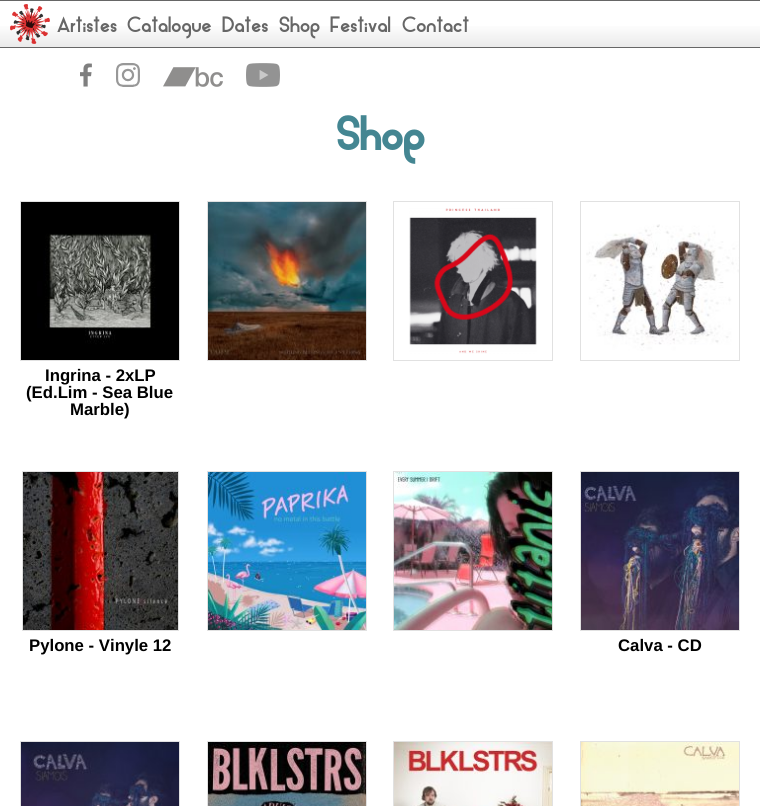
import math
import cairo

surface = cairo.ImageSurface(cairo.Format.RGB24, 760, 806)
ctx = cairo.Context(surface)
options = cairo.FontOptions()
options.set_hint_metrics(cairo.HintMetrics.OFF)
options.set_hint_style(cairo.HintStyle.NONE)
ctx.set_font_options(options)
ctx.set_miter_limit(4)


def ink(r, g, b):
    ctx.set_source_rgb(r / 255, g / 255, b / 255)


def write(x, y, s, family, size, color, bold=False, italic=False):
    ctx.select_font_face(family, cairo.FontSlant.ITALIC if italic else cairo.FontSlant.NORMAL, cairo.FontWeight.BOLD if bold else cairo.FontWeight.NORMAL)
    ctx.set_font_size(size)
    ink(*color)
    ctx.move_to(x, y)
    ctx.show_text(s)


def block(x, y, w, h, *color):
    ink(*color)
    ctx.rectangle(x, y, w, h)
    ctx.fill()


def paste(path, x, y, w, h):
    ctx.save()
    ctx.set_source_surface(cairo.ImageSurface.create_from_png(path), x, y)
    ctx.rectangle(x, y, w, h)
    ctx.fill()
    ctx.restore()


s1 = dict(family="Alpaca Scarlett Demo", size=19.5, color=(102, 102, 102))
s2 = dict(family="Alpaca Scarlett Demo", size=42, color=(68, 134, 146), bold=True)
s3 = dict(family="Liberation Sans", size=16.75, color=(0, 0, 0), bold=True)

ink(255, 255, 255)
ctx.paint()
gradient = cairo.LinearGradient(380, 1, 380, 47)
gradient.add_color_stop_rgba(0.37, 1, 1, 1, 1)
gradient.add_color_stop_rgba(0.49, 1, 1, 1, 1)
gradient.add_color_stop_rgba(1, 0.918, 0.918, 0.918, 1)
ctx.set_source(gradient)
ctx.rectangle(0, 26, 760, 21)
ctx.fill()
block(0, 0, 760, 1, 102, 102, 102)
block(0, 47, 760, 1, 102, 102, 102)
paste("pic1.png", 10, 4, 40, 40)
write(57, 32, "Artistes", **s1)
write(127, 32, "Catalogue", **s1)
write(222, 32, "Dates", **s1)
write(279, 32, "Shop", **s1)
write(330, 32, "Festival", **s1)
write(402, 32, "Contact", **s1)
paste("pic2.png", 80, 63, 12, 24)
paste("pic3.png", 116, 63, 24, 24)
paste("pic4.png", 163, 67, 60, 20)
paste("pic5.png", 246, 63, 34, 24)
write(336, 150, "Shop", **s2)
ctx.rectangle(207.5, 201.5, 159, 159)
ink(225, 225, 225)
ctx.set_line_width(1)
ctx.stroke()
paste("pic6.png", 208, 202, 158, 158)
ctx.rectangle(393.5, 201.5, 159, 159)
ctx.stroke()
paste("pic7.png", 409, 208, 128, 146)
ctx.rectangle(580.5, 201.5, 159, 159)
ctx.stroke()
paste("pic8.png", 586, 224, 153, 127)
ctx.rectangle(20.5, 201.5, 159, 159)
ctx.stroke()
paste("pic9.png", 21, 202, 158, 158)
write(45, 381, "Ingrina - 2xLP", **s3)
write(26, 398, "(Ed.Lim - Sea Blue", **s3)
write(70, 415, "Marble)", **s3)
ctx.rectangle(207.5, 471.5, 159, 159)
ink(225, 225, 225)
ctx.stroke()
paste("pic10.png", 208, 472, 158, 158)
ctx.rectangle(393.5, 471.5, 159, 159)
ctx.stroke()
paste("pic11.png", 394, 472, 158, 158)
ctx.rectangle(22.5, 471.5, 156, 159)
ctx.stroke()
paste("pic12.png", 23, 472, 155, 158)
write(29, 651, "Pylone - Vinyle 12", **s3)
ctx.rectangle(580.5, 471.5, 159, 159)
ink(225, 225, 225)
ctx.stroke()
paste("pic13.png", 581, 472, 158, 158)
write(618, 651, "Calva - CD", **s3)
ctx.rectangle(20.5, 741.5, 159, 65)
ink(225, 225, 225)
ctx.stroke()
paste("pic14.png", 21, 742, 158, 64)
ctx.rectangle(207.5, 741.5, 159, 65)
ctx.stroke()
paste("pic15.png", 208, 742, 158, 64)
ctx.rectangle(393.5, 741.5, 159, 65)
ctx.stroke()
paste("pic16.png", 394, 742, 158, 64)
ctx.rectangle(580.5, 741.5, 159, 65)
ctx.stroke()
paste("pic17.png", 581, 742, 158, 64)
surface.write_to_png("screenshot.png")
